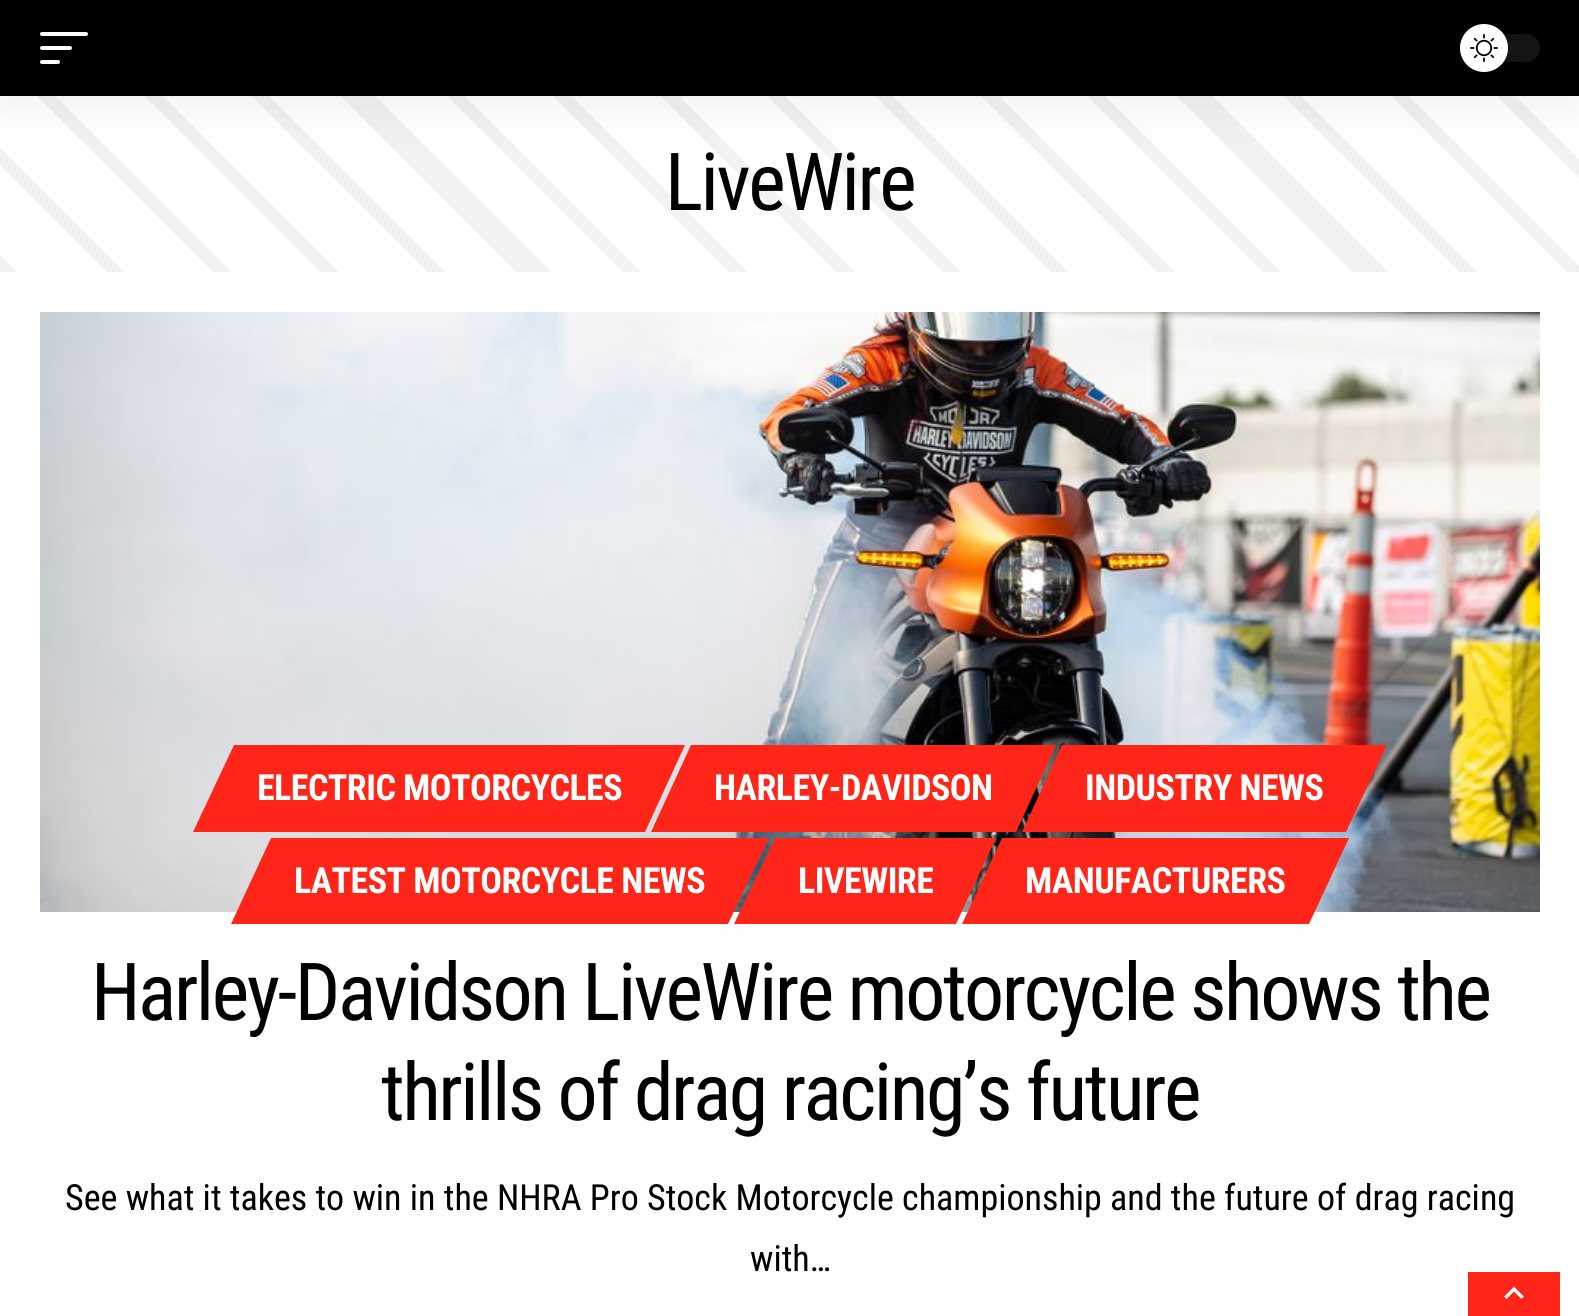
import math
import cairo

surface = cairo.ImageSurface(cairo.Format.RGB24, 1579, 1316)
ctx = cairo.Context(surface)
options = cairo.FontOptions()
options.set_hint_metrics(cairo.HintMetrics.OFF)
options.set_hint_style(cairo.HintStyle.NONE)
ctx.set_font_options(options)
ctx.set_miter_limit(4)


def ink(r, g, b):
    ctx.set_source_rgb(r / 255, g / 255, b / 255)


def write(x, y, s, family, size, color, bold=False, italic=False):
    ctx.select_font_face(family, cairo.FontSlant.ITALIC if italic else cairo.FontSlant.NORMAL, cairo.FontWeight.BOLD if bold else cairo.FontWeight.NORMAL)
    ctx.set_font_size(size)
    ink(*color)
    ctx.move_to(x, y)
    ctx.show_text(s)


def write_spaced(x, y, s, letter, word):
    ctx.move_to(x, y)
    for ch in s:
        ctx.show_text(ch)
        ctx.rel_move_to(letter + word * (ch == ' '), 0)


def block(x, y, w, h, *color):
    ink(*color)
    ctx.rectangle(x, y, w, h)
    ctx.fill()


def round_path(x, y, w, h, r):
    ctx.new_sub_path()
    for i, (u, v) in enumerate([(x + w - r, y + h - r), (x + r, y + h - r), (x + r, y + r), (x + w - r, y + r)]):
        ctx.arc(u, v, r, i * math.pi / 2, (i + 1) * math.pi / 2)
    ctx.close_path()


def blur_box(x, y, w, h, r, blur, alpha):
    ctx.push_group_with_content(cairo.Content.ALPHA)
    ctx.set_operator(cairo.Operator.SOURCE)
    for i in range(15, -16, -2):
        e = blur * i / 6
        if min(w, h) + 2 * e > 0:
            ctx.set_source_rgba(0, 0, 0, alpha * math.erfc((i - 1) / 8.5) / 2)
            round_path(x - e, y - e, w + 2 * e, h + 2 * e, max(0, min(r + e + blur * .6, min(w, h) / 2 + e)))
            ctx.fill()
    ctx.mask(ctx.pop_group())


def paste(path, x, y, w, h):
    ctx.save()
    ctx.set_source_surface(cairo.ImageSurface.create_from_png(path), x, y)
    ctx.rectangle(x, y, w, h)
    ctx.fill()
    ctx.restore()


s1 = dict(family="Roboto Condensed", size=36, color=(0, 0, 0))

ink(255, 255, 255)
ctx.paint()
gradient = cairo.LinearGradient(351, 623, 1241, -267)
gradient.add_color_stop_rgba(0, 0, 0, 0, 0.05)
gradient.add_color_stop_rgba(0.01, 0, 0, 0, 0.05)
gradient.add_color_stop_rgba(0.01, 0, 0, 0, 0)
gradient.add_color_stop_rgba(0.06, 0, 0, 0, 0)
gradient.add_color_stop_rgba(0.06, 0, 0, 0, 0.05)
gradient.add_color_stop_rgba(0.07, 0, 0, 0, 0.05)
gradient.add_color_stop_rgba(0.07, 0, 0, 0, 0)
gradient.add_color_stop_rgba(0.12, 0, 0, 0, 0)
gradient.add_color_stop_rgba(0.12, 0, 0, 0, 0.05)
gradient.add_color_stop_rgba(0.13, 0, 0, 0, 0.05)
gradient.add_color_stop_rgba(0.13, 0, 0, 0, 0)
gradient.add_color_stop_rgba(0.18, 0, 0, 0, 0)
gradient.add_color_stop_rgba(0.18, 0, 0, 0, 0.05)
gradient.add_color_stop_rgba(0.19, 0, 0, 0, 0.05)
gradient.add_color_stop_rgba(0.19, 0, 0, 0, 0)
gradient.add_color_stop_rgba(0.24, 0, 0, 0, 0)
gradient.add_color_stop_rgba(0.24, 0, 0, 0, 0.05)
gradient.add_color_stop_rgba(0.25, 0, 0, 0, 0.05)
gradient.add_color_stop_rgba(0.25, 0, 0, 0, 0)
gradient.add_color_stop_rgba(0.29, 0, 0, 0, 0)
gradient.add_color_stop_rgba(0.29, 0, 0, 0, 0.05)
gradient.add_color_stop_rgba(0.31, 0, 0, 0, 0.05)
gradient.add_color_stop_rgba(0.31, 0, 0, 0, 0)
gradient.add_color_stop_rgba(0.35, 0, 0, 0, 0)
gradient.add_color_stop_rgba(0.35, 0, 0, 0, 0.05)
gradient.add_color_stop_rgba(0.36, 0, 0, 0, 0.05)
gradient.add_color_stop_rgba(0.36, 0, 0, 0, 0)
gradient.add_color_stop_rgba(0.41, 0, 0, 0, 0)
gradient.add_color_stop_rgba(0.41, 0, 0, 0, 0.05)
gradient.add_color_stop_rgba(0.42, 0, 0, 0, 0.05)
gradient.add_color_stop_rgba(0.42, 0, 0, 0, 0)
gradient.add_color_stop_rgba(0.47, 0, 0, 0, 0)
gradient.add_color_stop_rgba(0.47, 0, 0, 0, 0.05)
gradient.add_color_stop_rgba(0.48, 0, 0, 0, 0.05)
gradient.add_color_stop_rgba(0.48, 0, 0, 0, 0)
gradient.add_color_stop_rgba(0.53, 0, 0, 0, 0)
gradient.add_color_stop_rgba(0.53, 0, 0, 0, 0.05)
gradient.add_color_stop_rgba(0.54, 0, 0, 0, 0.05)
gradient.add_color_stop_rgba(0.54, 0, 0, 0, 0)
gradient.add_color_stop_rgba(0.59, 0, 0, 0, 0)
gradient.add_color_stop_rgba(0.59, 0, 0, 0, 0.05)
gradient.add_color_stop_rgba(0.6, 0, 0, 0, 0.05)
gradient.add_color_stop_rgba(0.6, 0, 0, 0, 0)
gradient.add_color_stop_rgba(0.65, 0, 0, 0, 0)
gradient.add_color_stop_rgba(0.65, 0, 0, 0, 0.05)
gradient.add_color_stop_rgba(0.66, 0, 0, 0, 0.05)
gradient.add_color_stop_rgba(0.66, 0, 0, 0, 0)
gradient.add_color_stop_rgba(0.71, 0, 0, 0, 0)
gradient.add_color_stop_rgba(0.71, 0, 0, 0, 0.05)
gradient.add_color_stop_rgba(0.72, 0, 0, 0, 0.05)
gradient.add_color_stop_rgba(0.72, 0, 0, 0, 0)
gradient.add_color_stop_rgba(0.76, 0, 0, 0, 0)
gradient.add_color_stop_rgba(0.76, 0, 0, 0, 0.05)
gradient.add_color_stop_rgba(0.78, 0, 0, 0, 0.05)
gradient.add_color_stop_rgba(0.78, 0, 0, 0, 0)
gradient.add_color_stop_rgba(0.82, 0, 0, 0, 0)
gradient.add_color_stop_rgba(0.82, 0, 0, 0, 0.05)
gradient.add_color_stop_rgba(0.83, 0, 0, 0, 0.05)
gradient.add_color_stop_rgba(0.83, 0, 0, 0, 0)
gradient.add_color_stop_rgba(0.88, 0, 0, 0, 0)
gradient.add_color_stop_rgba(0.88, 0, 0, 0, 0.05)
gradient.add_color_stop_rgba(0.89, 0, 0, 0, 0.05)
gradient.add_color_stop_rgba(0.89, 0, 0, 0, 0)
gradient.add_color_stop_rgba(0.94, 0, 0, 0, 0)
gradient.add_color_stop_rgba(0.94, 0, 0, 0, 0.05)
gradient.add_color_stop_rgba(0.95, 0, 0, 0, 0.05)
gradient.add_color_stop_rgba(0.95, 0, 0, 0, 0)
gradient.add_color_stop_rgba(1, 0, 0, 0, 0)
ctx.set_source(gradient)
ctx.rectangle(0, 96, 1579, 176)
ctx.fill()
ink(0, 0, 0)
blur_box(0, 8, 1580, 96, 0, 30, 0.07)
block(0, 0, 1579, 96, 0, 0, 0)
ink(255, 255, 255)
round_path(40, 32, 48, 4, 2)
ctx.fill()
round_path(40, 46, 32, 4, 2)
ctx.fill()
round_path(40, 60, 20, 4, 2)
ctx.fill()
ink(20, 20, 20)
round_path(1460, 34, 80, 28, 14)
ctx.fill()
ink(255, 255, 255)
ctx.arc(1484, 48, 24, 0, 2 * math.pi)
ctx.fill()
paste("pic1.png", 1470, 34, 28, 28)
ctx.select_font_face("Roboto Condensed")
ctx.set_font_size(80)
ink(0, 0, 0)
write_spaced(665, 210, "LiveWire", -2.5, 0)
paste("pic2.png", 40, 312, 1500, 600)
ink(255, 37, 25)
ctx.new_path()
ctx.move_to(234, 745)
ctx.line_to(685, 745)
ctx.line_to(645, 832)
ctx.line_to(193, 832)
ctx.close_path()
ctx.fill()
ctx.select_font_face("Roboto Condensed", cairo.FontSlant.NORMAL, cairo.FontWeight.BOLD)
ctx.set_font_size(36)
ink(255, 255, 255)
write_spaced(257, 800, "ELECTRIC MOTORCYCLES", -0.55, 0)
ink(255, 37, 25)
ctx.new_path()
ctx.move_to(691, 745)
ctx.line_to(1056, 745)
ctx.line_to(1016, 832)
ctx.line_to(651, 832)
ctx.close_path()
ctx.fill()
ink(255, 255, 255)
write_spaced(714, 800, "HARLEY-DAVIDSON", -0.55, 0)
ink(255, 37, 25)
ctx.new_path()
ctx.move_to(1062, 745)
ctx.line_to(1387, 745)
ctx.line_to(1346, 832)
ctx.line_to(1022, 832)
ctx.close_path()
ctx.fill()
ink(255, 255, 255)
write_spaced(1085, 800, "INDUSTRY NEWS", -0.55, 0)
ink(255, 37, 25)
ctx.new_path()
ctx.move_to(271, 838)
ctx.line_to(769, 838)
ctx.line_to(728, 924)
ctx.line_to(231, 924)
ctx.close_path()
ctx.fill()
ink(255, 255, 255)
write_spaced(294, 893, "LATEST MOTORCYCLE NEWS", -0.55, 0)
ink(255, 37, 25)
ctx.new_path()
ctx.move_to(775, 838)
ctx.line_to(996, 838)
ctx.line_to(956, 924)
ctx.line_to(734, 924)
ctx.close_path()
ctx.fill()
ink(255, 255, 255)
write_spaced(798, 893, "LIVEWIRE", -0.55, 0)
ink(255, 37, 25)
ctx.new_path()
ctx.move_to(1002, 838)
ctx.line_to(1349, 838)
ctx.line_to(1309, 924)
ctx.line_to(962, 924)
ctx.close_path()
ctx.fill()
ink(255, 255, 255)
write_spaced(1025, 893, "MANUFACTURERS", -0.55, 0)
ctx.select_font_face("Roboto Condensed")
ctx.set_font_size(80)
ink(0, 0, 0)
write_spaced(91, 1020, "Harley-Davidson LiveWire motorcycle shows the", -2.5, 0)
write_spaced(381, 1120, "thrills of drag racing’s future", -2.5, 0)
write(65, 1210, "See what it takes to win in the NHRA Pro Stock Motorcycle championship and the future of drag racing", **s1)
write(750, 1271, "with…", **s1)
block(1468, 1272, 92, 44, 255, 37, 25)
paste("pic3.png", 1504, 1286, 20, 13)
surface.write_to_png("screenshot.png")
